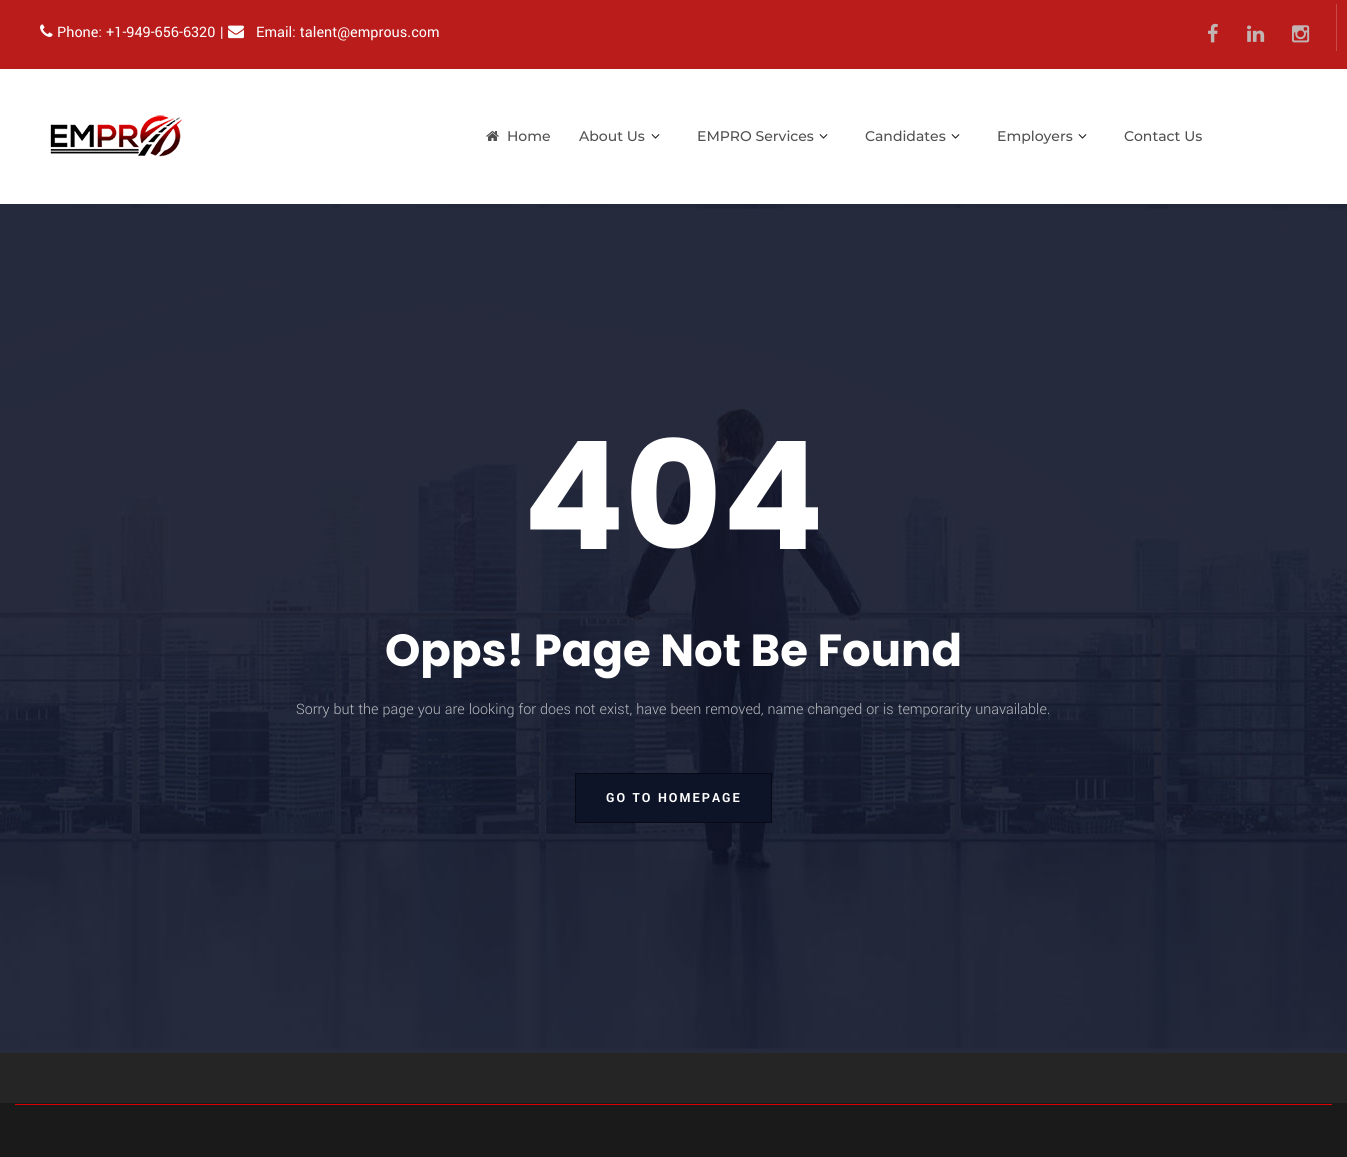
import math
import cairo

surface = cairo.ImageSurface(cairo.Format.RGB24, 1347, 1157)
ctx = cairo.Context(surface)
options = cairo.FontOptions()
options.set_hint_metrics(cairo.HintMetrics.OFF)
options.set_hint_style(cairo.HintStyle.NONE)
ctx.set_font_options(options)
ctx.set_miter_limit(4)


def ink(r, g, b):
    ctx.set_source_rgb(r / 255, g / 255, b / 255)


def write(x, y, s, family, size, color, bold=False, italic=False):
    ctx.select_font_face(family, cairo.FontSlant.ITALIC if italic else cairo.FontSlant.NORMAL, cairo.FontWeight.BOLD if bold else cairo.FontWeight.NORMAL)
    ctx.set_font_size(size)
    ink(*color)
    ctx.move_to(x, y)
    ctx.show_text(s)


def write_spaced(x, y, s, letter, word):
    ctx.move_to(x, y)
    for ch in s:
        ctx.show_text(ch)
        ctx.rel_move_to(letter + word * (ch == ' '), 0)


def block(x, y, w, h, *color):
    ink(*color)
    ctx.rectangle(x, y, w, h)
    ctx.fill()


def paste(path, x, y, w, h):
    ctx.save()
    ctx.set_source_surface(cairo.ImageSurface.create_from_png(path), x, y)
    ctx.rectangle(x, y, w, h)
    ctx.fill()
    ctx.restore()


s1 = dict(family="Yantramanav", size=16, color=(255, 255, 255))
s2 = dict(family="Montserrat Medium", size=14, color=(81, 81, 81))
s3 = dict(family="Poppins", size=150, color=(255, 255, 255), bold=True)
s4 = dict(family="Poppins", size=45, color=(255, 255, 255), bold=True)
s5 = dict(family="Yantramanav Light", size=16, color=(187, 188, 194))

ink(255, 255, 255)
ctx.paint()
block(0, 0, 1347, 69, 186, 27, 27)
paste("pic1.png", 40, 24, 13, 13)
write(57, 37, "Phone: +1-949-656-6320 |", **s1)
paste("pic2.png", 228, 25, 16, 14)
write(256, 37, "Email: talent@emprous.com", **s1)
block(1336, 4, 1, 47, 200, 73, 73)
paste("pic3.png", 1208, 23, 10, 20)
paste("pic4.png", 1247, 25, 18, 17)
paste("pic5.png", 1292, 25, 18, 18)
paste("pic6.png", 50, 115, 133, 42)
paste("pic7.png", 486, 131, 13, 10)
write(507, 141, "Home", **s2)
write(579, 141, "About Us", **s2)
paste("pic8.png", 651, 134, 9, 5)
write(697, 141, "EMPRO Services", **s2)
paste("pic8.png", 819, 134, 9, 5)
write(865, 141, "Candidates", **s2)
paste("pic8.png", 951, 134, 9, 5)
write(997, 141, "Employers", **s2)
paste("pic8.png", 1078, 134, 9, 5)
write(1124, 141, "Contact Us", **s2)
paste("pic9.png", 0, 204, 1347, 849)
write(523, 549, "404", **s3)
write(385, 666, "Opps! Page Not Be Found", **s4)
write(296, 714, "Sorry but the page you are looking for does not exist, have been removed, name changed or is temporarity unavailable.", **s5)
ink(14, 20, 39)
ctx.rectangle(575.5, 773.5, 196, 49)
ctx.fill_preserve()
ink(7, 10, 20)
ctx.set_line_width(1)
ctx.stroke()
ctx.select_font_face("Yantramanav", cairo.FontSlant.NORMAL, cairo.FontWeight.BOLD)
ctx.set_font_size(14)
ink(255, 255, 255)
write_spaced(606, 802, "GO TO HOMEPAGE", 2, 0)
block(0, 1103, 1347, 54, 26, 26, 26)
block(0, 1053, 1347, 50, 37, 37, 37)
block(15, 1104, 1317, 1, 220, 0, 0)
surface.write_to_png("screenshot.png")
